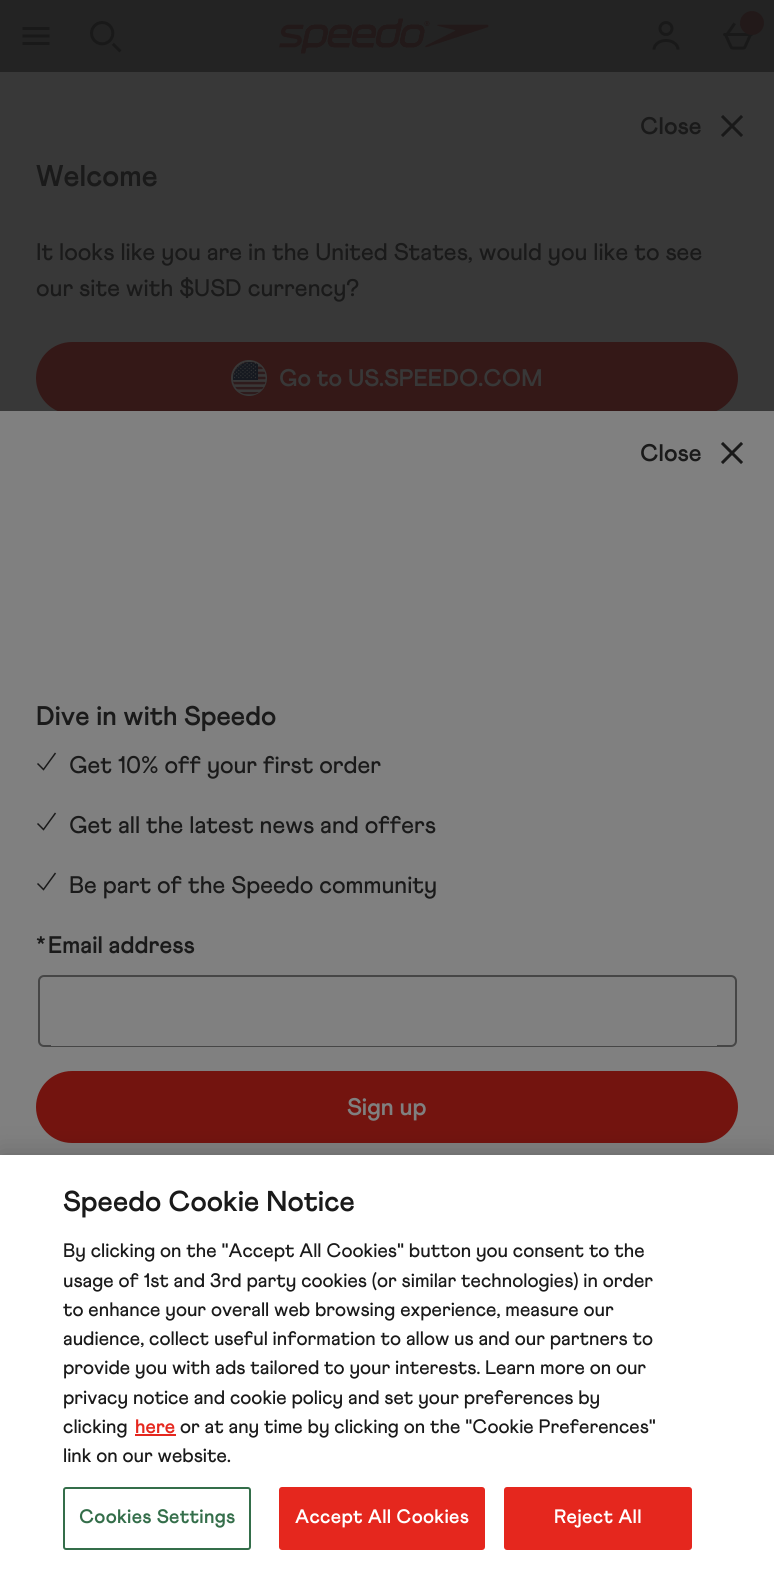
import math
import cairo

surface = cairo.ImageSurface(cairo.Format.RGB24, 774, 1577)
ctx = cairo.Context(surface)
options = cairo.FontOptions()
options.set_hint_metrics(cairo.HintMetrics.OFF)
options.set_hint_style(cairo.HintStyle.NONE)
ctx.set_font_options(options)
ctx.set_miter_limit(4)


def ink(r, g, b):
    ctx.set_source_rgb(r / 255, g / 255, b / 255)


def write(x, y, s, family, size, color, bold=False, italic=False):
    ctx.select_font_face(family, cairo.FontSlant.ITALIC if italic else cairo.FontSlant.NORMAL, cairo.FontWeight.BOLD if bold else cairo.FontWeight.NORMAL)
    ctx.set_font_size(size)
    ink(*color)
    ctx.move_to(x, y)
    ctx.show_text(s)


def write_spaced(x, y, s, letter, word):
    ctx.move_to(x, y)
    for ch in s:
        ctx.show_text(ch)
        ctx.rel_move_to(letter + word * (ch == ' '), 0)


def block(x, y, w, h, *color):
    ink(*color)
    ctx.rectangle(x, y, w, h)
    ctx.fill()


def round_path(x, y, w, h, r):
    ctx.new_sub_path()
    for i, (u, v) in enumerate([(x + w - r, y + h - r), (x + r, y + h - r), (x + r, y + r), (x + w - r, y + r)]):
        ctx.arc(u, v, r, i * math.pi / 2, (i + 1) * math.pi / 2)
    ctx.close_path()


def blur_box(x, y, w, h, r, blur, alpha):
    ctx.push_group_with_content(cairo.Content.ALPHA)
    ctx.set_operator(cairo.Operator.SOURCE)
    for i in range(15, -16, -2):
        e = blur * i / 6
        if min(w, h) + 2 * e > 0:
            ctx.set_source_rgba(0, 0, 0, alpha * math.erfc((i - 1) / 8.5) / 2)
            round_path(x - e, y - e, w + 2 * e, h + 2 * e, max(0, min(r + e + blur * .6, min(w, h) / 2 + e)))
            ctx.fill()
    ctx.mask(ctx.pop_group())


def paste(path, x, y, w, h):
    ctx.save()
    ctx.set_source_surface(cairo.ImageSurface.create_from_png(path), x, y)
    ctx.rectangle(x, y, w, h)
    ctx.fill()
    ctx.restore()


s1 = dict(family="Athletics", size=24, color=(26, 26, 26), bold=True)
s2 = dict(family="Athletics", size=30, color=(26, 26, 26), bold=True)
s3 = dict(family="Athletics Medium", size=24, color=(26, 26, 26))
s4 = dict(family="Athletics", size=24, color=(56, 56, 56), bold=True)
s5 = dict(family="Athletics", size=27, color=(26, 26, 26), bold=True)
s6 = dict(family="Athletics", size=24, color=(128, 128, 128), bold=True)
s7 = dict(family="Athletics", size=28.75, color=(26, 26, 26), bold=True)
s8 = dict(family="Athletics Medium", size=19.5, color=(26, 26, 26))
s9 = dict(family="Athletics", size=19.5, color=(229, 39, 30), bold=True)

ink(35, 35, 35)
ctx.paint()
paste("pic1.png", 22, 27, 28, 18)
paste("pic2.png", 90, 21, 32, 32)
paste("pic3.png", 279, 18, 210, 36)
paste("pic4.png", 652, 21, 28, 29)
paste("pic5.png", 723, 22, 30, 28)
ink(34, 25, 25)
ctx.arc(752, 23, 12, 0, 2 * math.pi)
ctx.fill()
block(0, 72, 774, 339, 56, 56, 56)
write(640, 134, "Close", **s1)
paste("pic6.png", 721, 115, 22, 22)
write(36, 186, "Welcome", **s2)
write(36, 260, "It looks like you are in the United States, would you like to see", **s3)
write(36, 296, "our site with $USD currency?", **s3)
ink(52, 24, 23)
round_path(37, 343, 700, 70, 35)
ctx.fill_preserve()
ctx.stroke()
ctx.arc(249, 378, 17, 0, 2 * math.pi)
ink(56, 56, 56)
ctx.stroke()
paste("pic7.png", 233, 362, 33, 33)
write(279, 386, "Go to US.SPEEDO.COM", **s4)
block(0, 411, 774, 744, 128, 128, 128)
write(640, 461, "Close", **s1)
paste("pic8.png", 721, 442, 22, 22)
write(36, 725, "Dive in with Speedo", **s5)
ctx.new_path()
ctx.move_to(37.5, 763.5)
ctx.line_to(43.5, 769.5)
ctx.line_to(55.5, 753)
ctx.set_line_width(1.5)
ctx.stroke()
write(69, 773, "Get 10% off your first order", **s3)
ctx.new_path()
ctx.move_to(37.5, 823.5)
ctx.line_to(43.5, 829.5)
ctx.line_to(55.5, 813)
ctx.stroke()
write(69, 833, "Get all the latest news and offers", **s3)
ctx.new_path()
ctx.move_to(37.5, 883.5)
ctx.line_to(43.5, 889.5)
ctx.line_to(55.5, 873)
ctx.stroke()
write(69, 893, "Be part of the Speedo community", **s3)
write(36, 953, "*", **s1)
write(48, 953, "Email address", **s1)
round_path(39, 976, 697, 70, 5)
ink(70, 70, 70)
ctx.set_line_width(2)
ctx.stroke()
block(51, 1045, 666, 1, 128, 128, 128)
ink(115, 20, 15)
round_path(37, 1072, 700, 70, 35)
ctx.fill_preserve()
ctx.stroke()
write(347, 1115, "Sign up", **s6)
ink(0, 0, 0)
blur_box(0, 1155, 774, 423, 0, 13.5, 0.2)
block(0, 1155, 774, 422, 255, 255, 255)
write(63, 1211, "Speedo Cookie Notice", **s7)
write(63, 1257, "By clicking on the \"Accept All Cookies\" button you consent to the", **s8)
write(63, 1287, "usage of 1st and 3rd party cookies (or similar technologies) in order", **s8)
write(63, 1316, "to enhance your overall web browsing experience, measure our", **s8)
write(63, 1345, "audience, collect useful information to allow us and our partners to", **s8)
write(63, 1374, "provide you with ads tailored to your interests. Learn more on our", **s8)
write(63, 1404, "privacy notice and cookie policy and set your preferences by", **s8)
write(63, 1433, "clicking", **s8)
write(135, 1433, "here", **s9)
block(135, 1434, 41, 2, 229, 39, 30)
write(180, 1433, "or at any time by clicking on the \"Cookie Preferences\"", **s8)
write(63, 1462, "link on our website.", **s8)
round_path(64, 1488, 186, 61, 2)
ink(52, 110, 74)
ctx.stroke()
ctx.select_font_face("Athletics", cairo.FontSlant.NORMAL, cairo.FontWeight.BOLD)
write_spaced(79, 1523, "Cookies Settings", 0.25, 0)
ink(229, 39, 30)
round_path(280, 1488, 204, 61, 2)
ctx.fill_preserve()
ctx.stroke()
ink(255, 255, 255)
write_spaced(295, 1523, "Accept All Cookies", 0.25, 0)
ink(229, 39, 30)
round_path(505, 1488, 186, 61, 2)
ctx.fill_preserve()
ctx.stroke()
ink(255, 255, 255)
write_spaced(554, 1523, "Reject All", 0.25, 0)
surface.write_to_png("screenshot.png")
